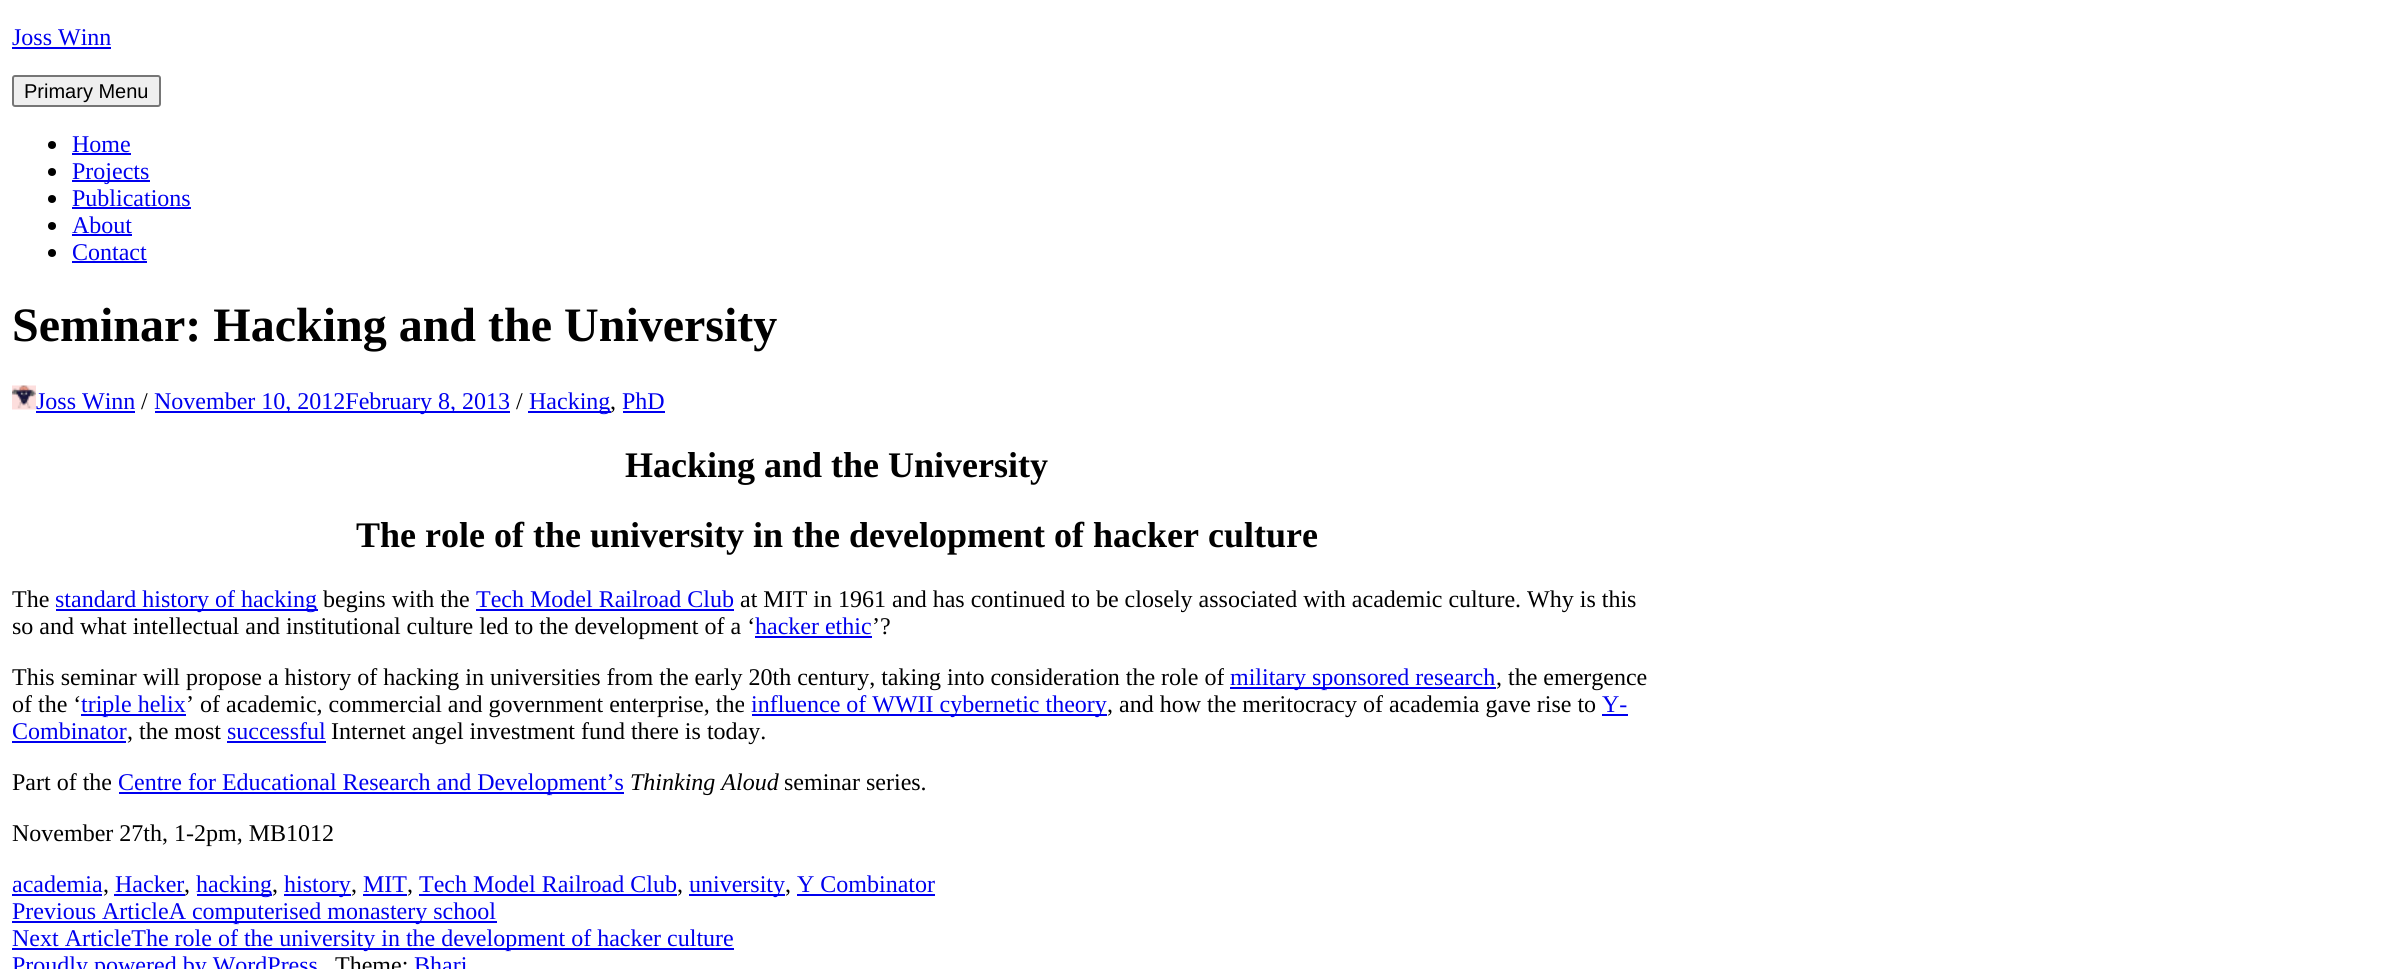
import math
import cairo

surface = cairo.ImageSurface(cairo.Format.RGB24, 2395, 969)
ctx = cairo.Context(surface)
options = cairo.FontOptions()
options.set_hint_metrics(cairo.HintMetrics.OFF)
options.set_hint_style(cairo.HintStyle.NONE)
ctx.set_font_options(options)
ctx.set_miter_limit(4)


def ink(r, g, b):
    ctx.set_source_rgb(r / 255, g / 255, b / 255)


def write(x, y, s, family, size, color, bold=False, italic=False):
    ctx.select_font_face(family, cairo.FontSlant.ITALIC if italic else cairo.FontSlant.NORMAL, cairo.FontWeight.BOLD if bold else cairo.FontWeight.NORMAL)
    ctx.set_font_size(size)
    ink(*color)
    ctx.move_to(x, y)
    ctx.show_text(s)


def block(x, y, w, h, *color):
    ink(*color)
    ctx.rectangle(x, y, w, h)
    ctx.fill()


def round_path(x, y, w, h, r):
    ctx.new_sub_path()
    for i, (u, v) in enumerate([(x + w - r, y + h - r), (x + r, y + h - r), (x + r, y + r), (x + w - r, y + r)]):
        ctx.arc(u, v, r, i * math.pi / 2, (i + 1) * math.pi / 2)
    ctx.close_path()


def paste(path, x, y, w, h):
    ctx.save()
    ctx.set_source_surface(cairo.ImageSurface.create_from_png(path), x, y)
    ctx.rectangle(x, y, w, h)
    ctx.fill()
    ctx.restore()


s1 = dict(family="Liberation Serif", size=24, color=(0, 0, 238))
s2 = dict(family="Liberation Sans", size=20, color=(0, 0, 0))
s3 = dict(family="Liberation Serif", size=48, color=(0, 0, 0), bold=True)
s4 = dict(family="Liberation Serif", size=24, color=(0, 0, 0))
s5 = dict(family="Liberation Serif", size=36, color=(0, 0, 0), bold=True)
s6 = dict(family="Liberation Serif", size=24, color=(0, 0, 0), italic=True)

ink(255, 255, 255)
ctx.paint()
write(12, 45, "Joss Winn", **s1)
block(12, 47, 99, 2, 0, 0, 238)
ink(239, 239, 239)
round_path(13, 76, 147, 30, 2)
ctx.fill_preserve()
ink(118, 118, 118)
ctx.stroke()
write(24, 98, "Primary Menu", **s2)
ctx.new_path()
ctx.arc(52, 145, 4, 0, 2 * math.pi)
ctx.fill()
write(72, 152, "Home", **s1)
block(72, 153, 59, 2, 0, 0, 238)
ink(0, 0, 0)
ctx.new_path()
ctx.arc(52, 172, 4, 0, 2 * math.pi)
ctx.fill()
block(72, 180, 78, 2, 0, 0, 238)
write(72, 179, "Projects", **s1)
ink(0, 0, 0)
ctx.new_path()
ctx.arc(52, 199, 4, 0, 2 * math.pi)
ctx.fill()
write(72, 206, "Publications", **s1)
block(72, 207, 119, 2, 0, 0, 238)
ink(0, 0, 0)
ctx.new_path()
ctx.arc(52, 226, 4, 0, 2 * math.pi)
ctx.fill()
write(72, 233, "About", **s1)
block(72, 234, 60, 2, 0, 0, 238)
ink(0, 0, 0)
ctx.new_path()
ctx.arc(52, 253, 4, 0, 2 * math.pi)
ctx.fill()
write(72, 260, "Contact", **s1)
block(72, 261, 75, 2, 0, 0, 238)
write(12, 341, "Seminar: Hacking and the University", **s3)
paste("pic1.png", 12, 385, 24, 25)
write(36, 409, "Joss Winn", **s1)
block(36, 411, 99, 2, 0, 0, 238)
write(141, 409, "/", **s4)
block(155, 411, 355, 2, 0, 0, 238)
write(154, 409, "November 10, 2012February 8, 2013", **s1)
write(516, 409, "/", **s4)
block(528, 411, 83, 2, 0, 0, 238)
write(529, 409, "Hacking", **s1)
write(610, 409, ",", **s4)
block(623, 411, 42, 2, 0, 0, 238)
write(622, 409, "PhD", **s1)
write(625, 477, "Hacking and the University", **s5)
write(356, 547, "The role of the university in the development of hacker culture", **s5)
write(12, 607, "The", **s4)
block(56, 609, 262, 2, 0, 0, 238)
write(55, 607, "standard history of hacking", **s1)
write(323, 607, "begins with the", **s4)
write(476, 607, "Tech Model Railroad Club", **s1)
block(476, 609, 258, 2, 0, 0, 238)
write(740, 607, "at MIT in 1961 and has continued to be closely associated with academic culture. Why is this", **s4)
write(12, 634, "so and what intellectual and institutional culture led to the development of a ‘", **s4)
write(755, 634, "hacker ethic", **s1)
block(755, 636, 117, 2, 0, 0, 238)
write(872, 634, "’?", **s4)
write(12, 685, "This seminar will propose a history of hacking in universities from the early 20th century, taking into consideration the role of", **s4)
block(1230, 687, 266, 2, 0, 0, 238)
write(1230, 685, "military sponsored research", **s1)
write(1496, 685, ", the emergence", **s4)
write(12, 712, "of the ‘", **s4)
block(81, 714, 105, 2, 0, 0, 238)
write(81, 712, "triple helix", **s1)
write(186, 712, "’ of academic, commercial and government enterprise, the", **s4)
block(752, 714, 355, 2, 0, 0, 238)
write(751, 712, "influence of WWII cybernetic theory", **s1)
write(1107, 712, ", and how the meritocracy of academia gave rise to", **s4)
write(1602, 712, "Y-", **s1)
block(1602, 714, 26, 2, 0, 0, 238)
write(12, 739, "Combinator", **s1)
block(12, 741, 114, 2, 0, 0, 238)
write(127, 739, ", the most", **s4)
write(227, 739, "successful", **s1)
block(227, 741, 99, 2, 0, 0, 238)
write(331, 739, "Internet angel investment fund there is today.", **s4)
write(12, 790, "Part of the", **s4)
block(119, 792, 505, 2, 0, 0, 238)
write(118, 790, "Centre for Educational Research and Development’s", **s1)
write(630, 790, "Thinking Aloud", **s6)
write(784, 790, "seminar series.", **s4)
write(12, 841, "November 27th, 1-2pm, MB1012", **s4)
write(12, 892, "academia", **s1)
write(103, 892, ",", **s4)
block(12, 894, 90, 2, 0, 0, 238)
write(115, 892, "Hacker", **s1)
block(114, 894, 71, 2, 0, 0, 238)
write(184, 892, ",", **s4)
block(197, 894, 75, 2, 0, 0, 238)
write(196, 892, "hacking", **s1)
write(272, 892, ",", **s4)
block(284, 894, 67, 2, 0, 0, 238)
write(284, 892, "history", **s1)
write(351, 892, ",", **s4)
write(363, 892, "MIT", **s1)
write(407, 892, ",", **s4)
block(363, 894, 44, 2, 0, 0, 238)
write(419, 892, "Tech Model Railroad Club", **s1)
write(677, 892, ",", **s4)
block(419, 894, 258, 2, 0, 0, 238)
block(689, 894, 96, 2, 0, 0, 238)
write(689, 892, "university", **s1)
write(785, 892, ",", **s4)
block(797, 894, 138, 2, 0, 0, 238)
write(797, 892, "Y Combinator", **s1)
block(12, 921, 485, 2, 0, 0, 238)
write(12, 919, "Previous ArticleA computerised monastery school", **s1)
block(12, 948, 722, 2, 0, 0, 238)
write(12, 946, "Next ArticleThe role of the university in the development of hacker culture", **s1)
write(12, 973, "Proudly powered by WordPress", **s1)
write(335, 973, "Theme:", **s4)
write(414, 973, "Bhari", **s1)
surface.write_to_png("screenshot.png")
